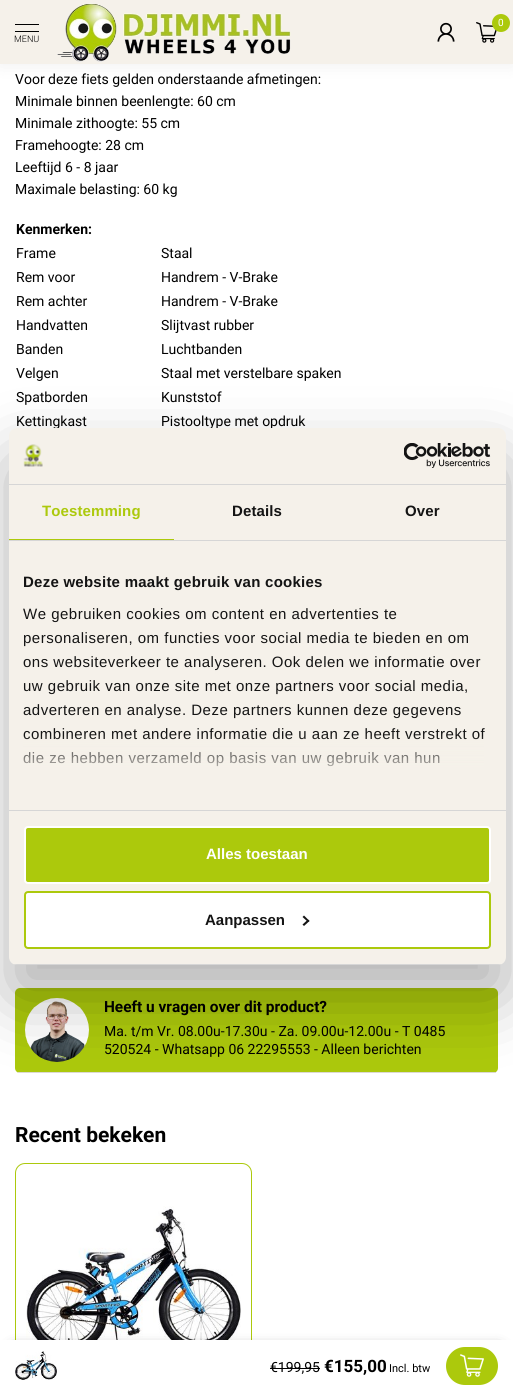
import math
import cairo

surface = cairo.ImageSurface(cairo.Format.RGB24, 513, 1392)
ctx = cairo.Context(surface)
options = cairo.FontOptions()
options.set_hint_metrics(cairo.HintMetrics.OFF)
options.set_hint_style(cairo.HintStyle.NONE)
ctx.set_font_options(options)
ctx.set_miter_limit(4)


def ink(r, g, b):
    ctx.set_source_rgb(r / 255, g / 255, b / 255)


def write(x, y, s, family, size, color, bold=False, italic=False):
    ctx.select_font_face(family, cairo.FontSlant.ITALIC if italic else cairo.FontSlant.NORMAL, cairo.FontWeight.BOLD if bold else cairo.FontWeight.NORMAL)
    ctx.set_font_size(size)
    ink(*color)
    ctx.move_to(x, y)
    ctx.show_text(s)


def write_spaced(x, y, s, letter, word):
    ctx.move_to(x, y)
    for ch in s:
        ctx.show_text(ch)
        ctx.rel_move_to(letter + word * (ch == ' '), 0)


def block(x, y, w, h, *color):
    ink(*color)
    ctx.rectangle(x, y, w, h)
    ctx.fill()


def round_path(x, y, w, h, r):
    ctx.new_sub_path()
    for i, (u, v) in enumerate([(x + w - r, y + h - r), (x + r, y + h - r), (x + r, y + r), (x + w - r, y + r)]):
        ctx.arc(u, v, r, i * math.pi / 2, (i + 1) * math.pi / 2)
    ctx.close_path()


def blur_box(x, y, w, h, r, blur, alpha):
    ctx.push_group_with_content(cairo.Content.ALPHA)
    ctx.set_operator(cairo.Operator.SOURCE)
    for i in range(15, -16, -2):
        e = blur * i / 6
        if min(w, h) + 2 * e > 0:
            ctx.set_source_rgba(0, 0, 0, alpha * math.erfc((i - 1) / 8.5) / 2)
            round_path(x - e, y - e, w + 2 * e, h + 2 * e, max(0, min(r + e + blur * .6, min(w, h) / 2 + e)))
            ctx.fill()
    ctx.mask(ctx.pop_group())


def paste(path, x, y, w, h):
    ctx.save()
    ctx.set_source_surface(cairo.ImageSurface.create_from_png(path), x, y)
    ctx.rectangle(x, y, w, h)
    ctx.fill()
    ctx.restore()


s1 = dict(family="Roboto", size=10, color=(255, 255, 255))
s2 = dict(family="Roboto Light", size=9, color=(0, 0, 0))
s3 = dict(family="Roboto", size=14, color=(0, 0, 0))
s4 = dict(family="Roboto", size=14, color=(0, 0, 0), bold=True)
s5 = dict(family="Roboto", size=15.4, color=(0, 0, 0), bold=True)
s6 = dict(family="Roboto", size=21, color=(0, 0, 0), bold=True)
s7 = dict(family="Liberation Sans", size=15, color=(255, 255, 255), bold=True)
s8 = dict(family="Liberation Sans", size=15, color=(20, 20, 20), bold=True)
s9 = dict(family="Roboto", size=17, color=(0, 0, 0), bold=True)
s10 = dict(family="Roboto", size=11, color=(0, 0, 0))

ink(255, 255, 255)
ctx.paint()
ink(0, 0, 0)
blur_box(0, 0, 513, 64, 0, 10, 0.07)
block(0, 0, 513, 64, 245, 241, 234)
paste("pic1.png", 437, 22, 18, 20)
paste("pic2.png", 476, 22, 21, 21)
ink(172, 201, 12)
ctx.arc(501, 23, 9, 0, 2 * math.pi)
ctx.fill()
write(498, 26, "0", **s1)
block(15, 24, 24, 1, 0, 0, 0)
block(15, 31, 24, 1, 0, 0, 0)
write(14, 42, "MENU", **s2)
paste("pic3.png", 57, 3, 234, 59)
write(15, 84, "Voor deze fiets gelden onderstaande afmetingen:", **s3)
write(15, 106, "Minimale binnen beenlengte: 60 cm", **s3)
write(15, 128, "Minimale zithoogte: 55 cm", **s3)
write(15, 150, "Framehoogte: 28 cm", **s3)
write(15, 172, "Leeftijd 6 - 8 jaar", **s3)
write(15, 194, "Maximale belasting: 60 kg", **s3)
write(16, 234, "Kenmerken:", **s4)
write(16, 258, "Frame", **s3)
write(161, 258, "Staal", **s3)
write(16, 282, "Rem voor", **s3)
write(161, 282, "Handrem - V-Brake", **s3)
write(16, 306, "Rem achter", **s3)
write(161, 306, "Handrem - V-Brake", **s3)
write(16, 330, "Handvatten", **s3)
write(161, 330, "Slijtvast rubber", **s3)
write(16, 354, "Banden", **s3)
write(161, 354, "Luchtbanden", **s3)
write(16, 378, "Velgen", **s3)
write(161, 378, "Staal met verstelbare spaken", **s3)
write(16, 402, "Spatborden", **s3)
write(161, 402, "Kunststof", **s3)
write(16, 426, "Kettingkast", **s3)
write(161, 426, "Pistooltype met opdruk", **s3)
ink(172, 201, 12)
round_path(15, 988, 483, 85, 5)
ctx.fill()
block(18, 1072, 478, 1, 220, 216, 210)
paste("pic4.png", 25, 998, 64, 64)
write(104, 1012, "Heeft u vragen over dit product?", **s5)
write(104, 1036, "Ma. t/m Vr. 08.00u-17.30u - Za. 09.00u-12.00u - T 0485", **s3)
write(104, 1054, "520524 - Whatsapp 06 22295553 - Alleen berichten", **s3)
write(15, 1142, "Recent bekeken", **s6)
round_path(15.5, 1163.5, 236, 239, 9.5)
ink(172, 201, 12)
ctx.set_line_width(1)
ctx.stroke()
paste("pic5.png", 26, 1206, 215, 134)
ink(0, 0, 0)
blur_box(9, 460, 497, 537, 8, 34, 0.3)
ink(245, 241, 234)
round_path(9, 428, 497, 537, 8)
ctx.fill()
block(9, 484, 497, 1, 214, 214, 214)
paste("pic6.png", 23, 444, 20, 23)
paste("pic7.png", 404, 443, 87, 25)
block(9, 540, 497, 1, 214, 214, 214)
block(9, 539, 165, 1, 172, 201, 12)
ctx.select_font_face("Liberation Sans", cairo.FontSlant.NORMAL, cairo.FontWeight.BOLD)
ctx.set_font_size(15)
write_spaced(42, 516, "Toestemming", 0.1, 0)
ink(20, 20, 20)
write_spaced(232, 516, "Details", 0.1, 0)
write_spaced(405, 516, "Over", 0.1, 0)
block(9, 810, 497, 1, 214, 214, 214)
ink(20, 20, 20)
write_spaced(23, 587, "Deze website maakt gebruik van cookies", 0.25, 0)
ctx.select_font_face("Liberation Sans")
write_spaced(23, 619, "We gebruiken cookies om content en advertenties te", 0.5, 0)
write_spaced(23, 643, "personaliseren, om functies voor social media te bieden en om", 0.5, 0)
write_spaced(23, 667, "ons websiteverkeer te analyseren. Ook delen we informatie over", 0.5, 0)
write_spaced(23, 691, "uw gebruik van onze site met onze partners voor social media,", 0.5, 0)
write_spaced(23, 715, "adverteren en analyse. Deze partners kunnen deze gegevens", 0.5, 0)
write_spaced(23, 739, "combineren met andere informatie die u aan ze heeft verstrekt of", 0.5, 0)
write_spaced(23, 763, "die ze hebben verzameld op basis van uw gebruik van hun", 0.5, 0)
gradient = cairo.LinearGradient(251, 810, 251, 735)
gradient.add_color_stop_rgba(0, 0.961, 0.945, 0.918, 1)
gradient.add_color_stop_rgba(0.5, 0.961, 0.945, 0.918, 0.8)
gradient.add_color_stop_rgba(1, 0.961, 0.945, 0.918, 0)
ctx.set_source(gradient)
ctx.rectangle(23, 736, 461, 31)
ctx.fill()
ctx.save()
round_path(9, 428, 497, 537, 8)
ctx.clip()
block(9, 964, 497, 1, 214, 214, 214)
ctx.restore()
ink(172, 201, 12)
round_path(25, 827, 465, 56, 3)
ctx.fill_preserve()
ink(255, 255, 255)
ctx.set_line_width(2)
ctx.stroke()
write(206, 859, "Alles toestaan", **s7)
round_path(25, 892, 465, 56, 3)
ctx.fill_preserve()
ink(172, 201, 12)
ctx.stroke()
write(205, 925, "Aanpassen", **s8)
ctx.new_path()
ctx.move_to(304, 915.5)
ctx.line_to(309.5, 921)
ctx.line_to(308, 922)
ctx.line_to(302.5, 917)
ctx.close_path()
ctx.fill()
ctx.new_path()
ctx.move_to(308, 919.5)
ctx.line_to(309.5, 921)
ctx.line_to(304, 926)
ctx.line_to(302.5, 924.5)
ctx.close_path()
ctx.fill()
ink(0, 0, 0)
blur_box(14, 1352, 485, 24, 0, 7.5, 1)
block(0, 1340, 513, 52, 255, 255, 255)
paste("pic8.png", 15, 1351, 42, 29)
write(270, 1372, "€199,95", **s3)
block(270, 1368, 50, 1, 0, 0, 0)
write(324, 1372, "€155,00", **s9)
write(389, 1372, "Incl. btw", **s10)
ink(172, 201, 12)
round_path(446, 1347, 52, 38, 19)
ctx.fill()
paste("pic9.png", 460, 1354, 24, 23)
surface.write_to_png("screenshot.png")
